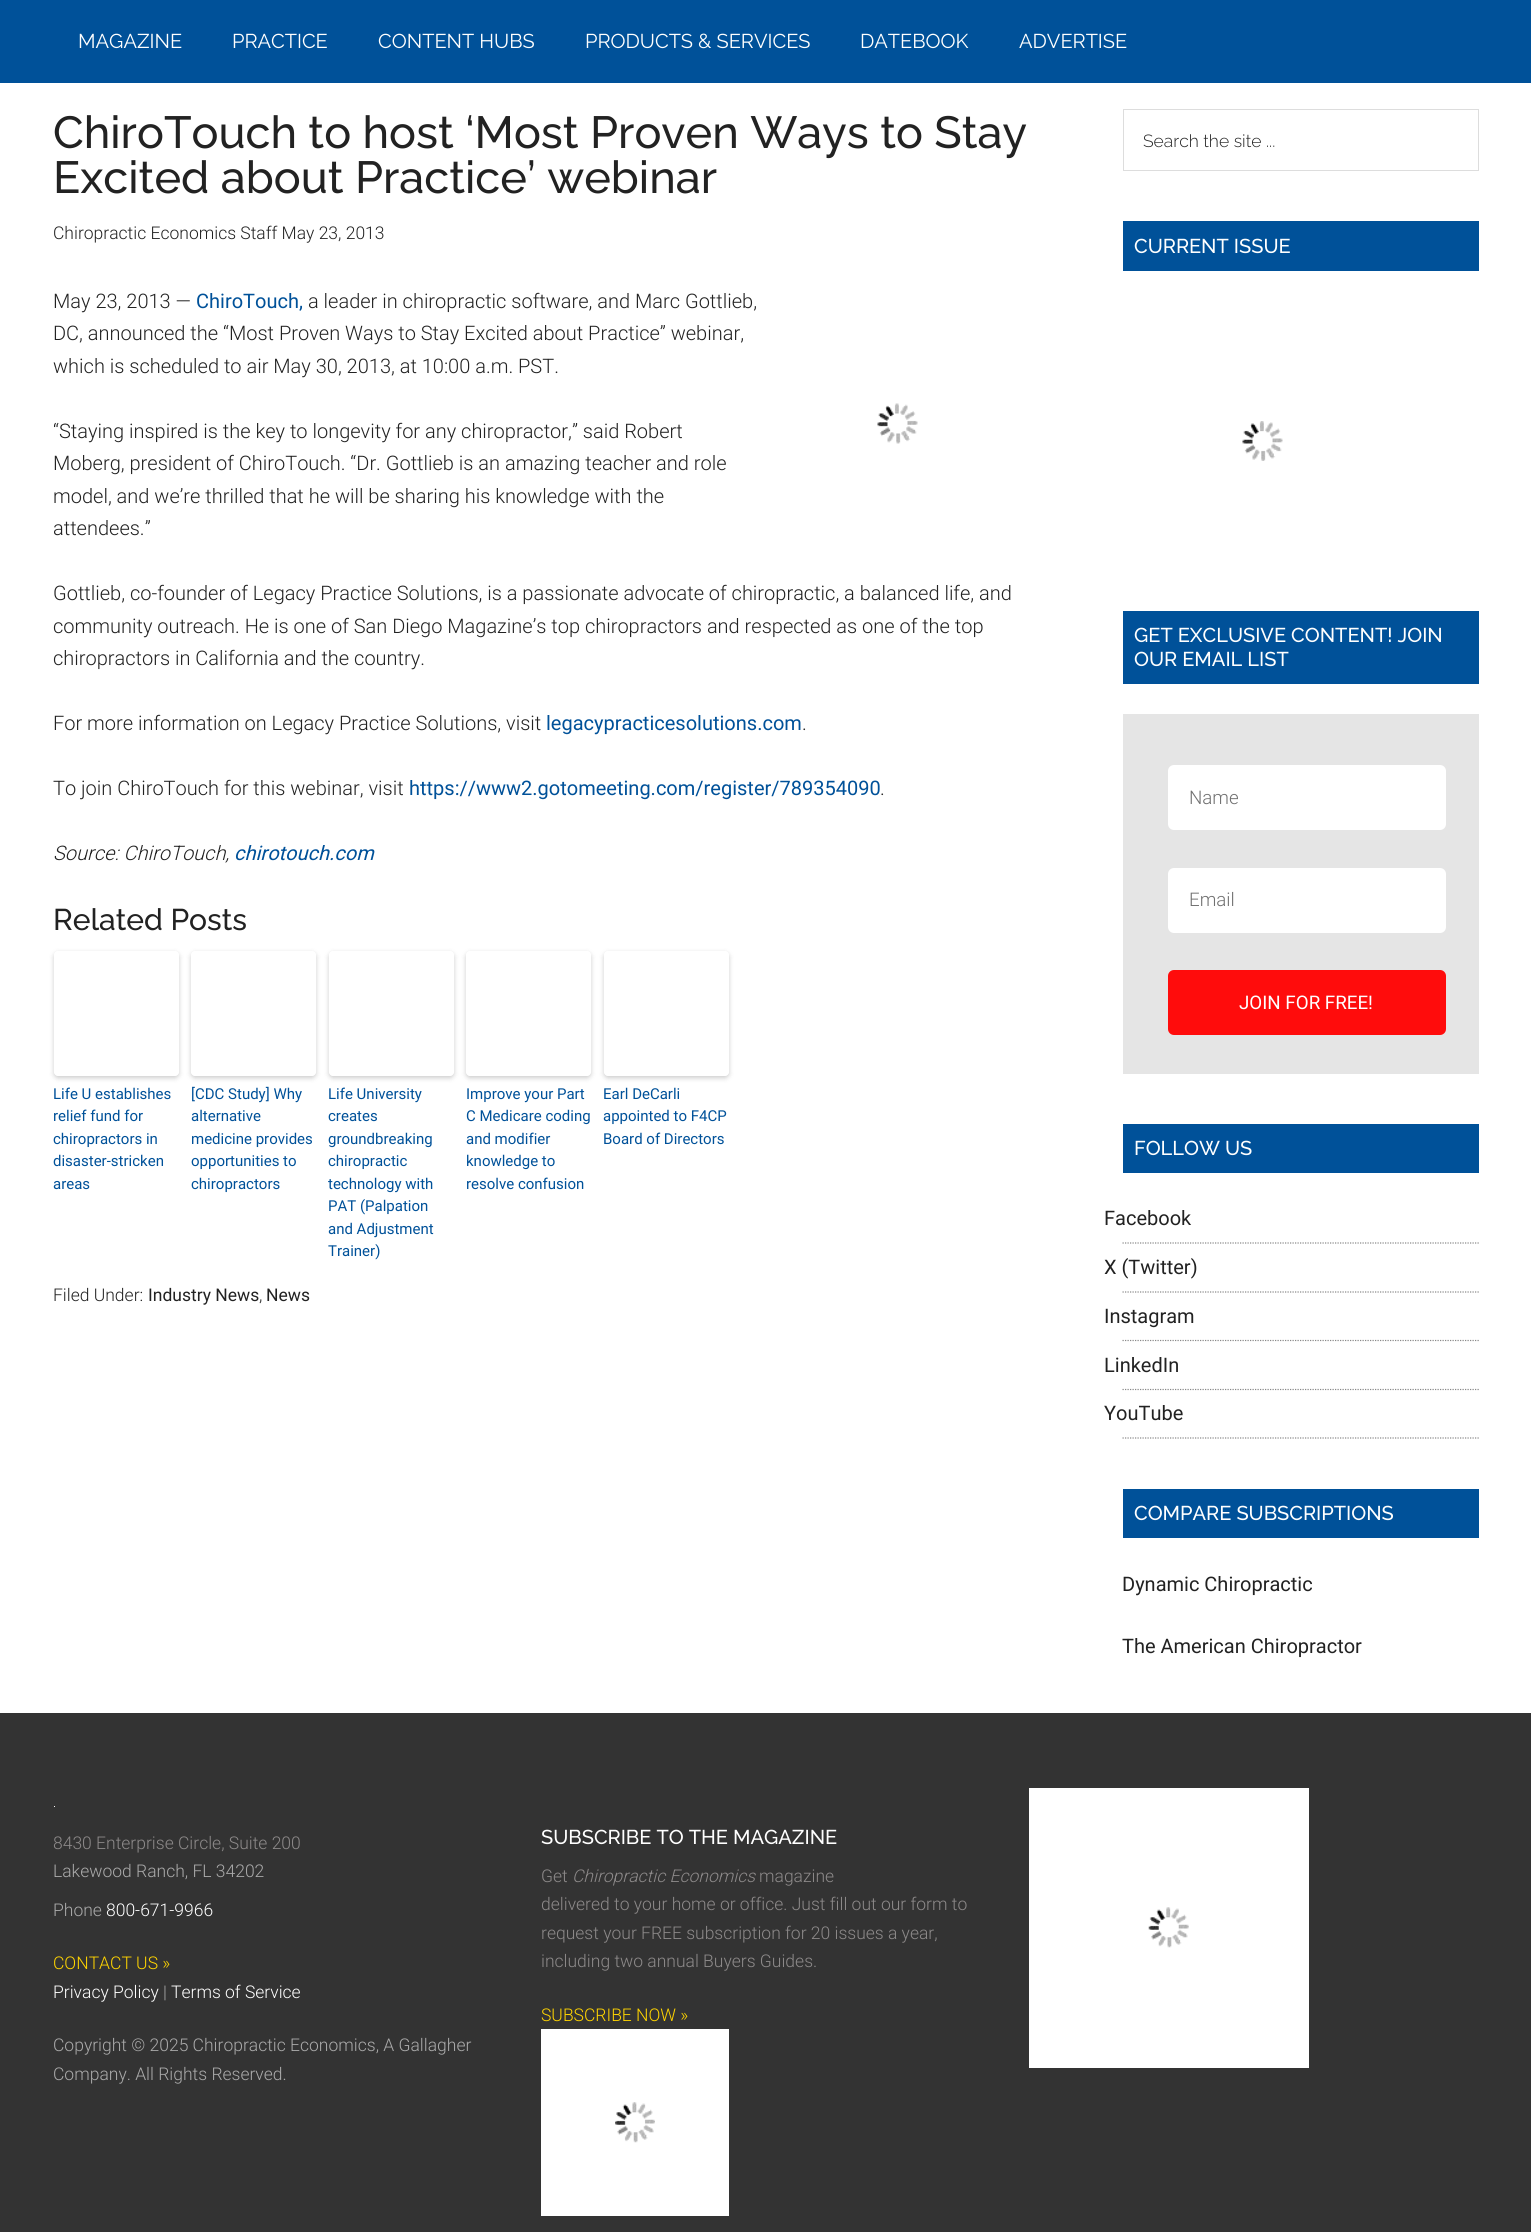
import math
import cairo

surface = cairo.ImageSurface(cairo.Format.RGB24, 1531, 2232)
ctx = cairo.Context(surface)
options = cairo.FontOptions()
options.set_hint_metrics(cairo.HintMetrics.OFF)
options.set_hint_style(cairo.HintStyle.NONE)
ctx.set_font_options(options)
ctx.set_miter_limit(4)


def ink(r, g, b):
    ctx.set_source_rgb(r / 255, g / 255, b / 255)


def write(x, y, s, family, size, color, bold=False, italic=False):
    ctx.select_font_face(family, cairo.FontSlant.ITALIC if italic else cairo.FontSlant.NORMAL, cairo.FontWeight.BOLD if bold else cairo.FontWeight.NORMAL)
    ctx.set_font_size(size)
    ink(*color)
    ctx.move_to(x, y)
    ctx.show_text(s)


def block(x, y, w, h, *color):
    ink(*color)
    ctx.rectangle(x, y, w, h)
    ctx.fill()


def round_path(x, y, w, h, r):
    ctx.new_sub_path()
    for i, (u, v) in enumerate([(x + w - r, y + h - r), (x + r, y + h - r), (x + r, y + r), (x + w - r, y + r)]):
        ctx.arc(u, v, r, i * math.pi / 2, (i + 1) * math.pi / 2)
    ctx.close_path()


def blur_box(x, y, w, h, r, blur, alpha):
    ctx.push_group_with_content(cairo.Content.ALPHA)
    ctx.set_operator(cairo.Operator.SOURCE)
    for i in range(15, -16, -2):
        e = blur * i / 6
        if min(w, h) + 2 * e > 0:
            ctx.set_source_rgba(0, 0, 0, alpha * math.erfc((i - 1) / 8.5) / 2)
            round_path(x - e, y - e, w + 2 * e, h + 2 * e, max(0, min(r + e + blur * .6, min(w, h) / 2 + e)))
            ctx.fill()
    ctx.mask(ctx.pop_group())


def paste(path, x, y, w, h):
    ctx.save()
    ctx.set_source_surface(cairo.ImageSurface.create_from_png(path), x, y)
    ctx.rectangle(x, y, w, h)
    ctx.fill()
    ctx.restore()


s1 = dict(family="Raleway", size=20, color=(255, 255, 255))
s2 = dict(family="Raleway Medium", size=45, color=(34, 34, 34))
s3 = dict(family="Roboto Light", size=17.5, color=(34, 34, 34))
s4 = dict(family="Roboto Light", size=20, color=(34, 34, 34))
s5 = dict(family="Roboto", size=20, color=(0, 81, 153))
s6 = dict(family="Roboto Light", size=20, color=(34, 34, 34), italic=True)
s7 = dict(family="Roboto", size=20, color=(0, 81, 153), italic=True)
s8 = dict(family="Raleway Medium", size=30, color=(34, 34, 34))
s9 = dict(family="Roboto", size=15, color=(0, 81, 153))
s10 = dict(family="Roboto", size=17.5, color=(34, 34, 34))
s11 = dict(family="Raleway Light", size=17.5, color=(34, 34, 34))
s12 = dict(family="Raleway Medium", size=20, color=(255, 255, 255))
s13 = dict(family="Roboto Light", size=18.75, color=(112, 112, 112))
s14 = dict(family="Roboto", size=18.75, color=(255, 255, 255))
s15 = dict(family="Roboto", size=20, color=(34, 34, 34))
s16 = dict(family="Roboto Light", size=17.5, color=(140, 137, 137))
s17 = dict(family="Roboto Light", size=17.5, color=(170, 170, 170))
s18 = dict(family="Roboto Light", size=17.5, color=(255, 255, 255))
s19 = dict(family="Roboto Light", size=17.5, color=(255, 212, 0))
s20 = dict(family="Roboto Light", size=17.5, color=(140, 137, 137), italic=True)

ink(255, 255, 255)
ctx.paint()
block(0, 0, 1531, 83, 0, 81, 153)
write(78, 48, "MAGAZINE", **s1)
write(232, 48, "PRACTICE", **s1)
write(378, 48, "CONTENT HUBS", **s1)
write(585, 48, "PRODUCTS & SERVICES", **s1)
write(860, 48, "DATEBOOK", **s1)
write(1019, 48, "ADVERTISE", **s1)
write(53, 148, "ChiroTouch to host ‘Most Proven Ways to Stay", **s2)
write(53, 193, "Excited about Practice’ webinar", **s2)
write(53, 239, "Chiropractic Economics Staff May 23, 2013", **s3)
write(53, 308, "May 23, 2013 —", **s4)
write(196, 308, "ChiroTouch,", **s5)
write(308, 308, "a leader in chiropractic software, and Marc Gottlieb,", **s4)
write(53, 340, "DC, announced the “Most Proven Ways to Stay Excited about Practice” webinar,", **s4)
write(53, 373, "which is scheduled to air May 30, 2013, at 10:00 a.m. PST.", **s4)
paste("pic1.png", 877, 403, 41, 41)
write(53, 438, "“Staying inspired is the key to longevity for any chiropractor,” said Robert", **s4)
write(53, 470, "Moberg, president of ChiroTouch. “Dr. Gottlieb is an amazing teacher and role", **s4)
write(53, 503, "model, and we’re thrilled that he will be sharing his knowledge with the", **s4)
write(53, 535, "attendees.”", **s4)
write(53, 600, "Gottlieb, co-founder of Legacy Practice Solutions, is a passionate advocate of chiropractic, a balanced life, and", **s4)
write(53, 633, "community outreach. He is one of San Diego Magazine’s top chiropractors and respected as one of the top", **s4)
write(53, 665, "chiropractors in California and the country.", **s4)
write(53, 730, "For more information on Legacy Practice Solutions, visit", **s4)
write(546, 730, "legacypracticesolutions.com", **s5)
write(802, 730, ".", **s4)
write(53, 795, "To join ChiroTouch for this webinar, visit", **s4)
write(409, 795, "https://www2.gotomeeting.com/register/789354090", **s5)
write(880, 795, ".", **s4)
write(53, 860, "Source: ChiroTouch,", **s6)
write(234, 860, "chirotouch.com", **s7)
write(53, 930, "Related Posts", **s8)
ctx.save()
ctx.set_fill_rule(cairo.FillRule.EVEN_ODD)
ctx.new_path()
ctx.move_to(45, 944)
ctx.line_to(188, 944)
ctx.line_to(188, 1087)
ctx.line_to(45, 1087)
ctx.close_path()
ctx.move_to(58, 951)
ctx.line_to(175, 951)
ctx.curve_to(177, 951, 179, 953, 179, 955)
ctx.line_to(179, 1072)
ctx.curve_to(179, 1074, 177, 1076, 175, 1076)
ctx.line_to(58, 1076)
ctx.curve_to(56, 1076, 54, 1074, 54, 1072)
ctx.line_to(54, 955)
ctx.curve_to(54, 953, 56, 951, 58, 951)
ctx.close_path()
ctx.clip()
ink(0, 0, 0)
blur_box(54, 953, 125, 125, 4, 2.5, 0.2)
ctx.restore()
write(53, 1099, "Life U establishes", **s9)
write(53, 1121, "relief fund for", **s9)
write(53, 1144, "chiropractors in", **s9)
write(53, 1166, "disaster-stricken", **s9)
write(53, 1189, "areas", **s9)
ctx.save()
ctx.set_fill_rule(cairo.FillRule.EVEN_ODD)
ctx.new_path()
ctx.move_to(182, 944)
ctx.line_to(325, 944)
ctx.line_to(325, 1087)
ctx.line_to(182, 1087)
ctx.close_path()
ctx.move_to(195, 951)
ctx.line_to(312, 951)
ctx.curve_to(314, 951, 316, 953, 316, 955)
ctx.line_to(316, 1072)
ctx.curve_to(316, 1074, 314, 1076, 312, 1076)
ctx.line_to(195, 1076)
ctx.curve_to(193, 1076, 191, 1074, 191, 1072)
ctx.line_to(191, 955)
ctx.curve_to(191, 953, 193, 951, 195, 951)
ctx.close_path()
ctx.clip()
ink(0, 0, 0)
blur_box(191, 953, 125, 125, 4, 2.5, 0.2)
ctx.restore()
write(191, 1099, "[CDC Study] Why", **s9)
write(191, 1121, "alternative", **s9)
write(191, 1144, "medicine provides", **s9)
write(191, 1166, "opportunities to", **s9)
write(191, 1189, "chiropractors", **s9)
ctx.save()
ctx.set_fill_rule(cairo.FillRule.EVEN_ODD)
ctx.new_path()
ctx.move_to(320, 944)
ctx.line_to(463, 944)
ctx.line_to(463, 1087)
ctx.line_to(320, 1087)
ctx.close_path()
ctx.move_to(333, 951)
ctx.line_to(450, 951)
ctx.curve_to(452, 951, 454, 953, 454, 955)
ctx.line_to(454, 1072)
ctx.curve_to(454, 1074, 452, 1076, 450, 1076)
ctx.line_to(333, 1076)
ctx.curve_to(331, 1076, 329, 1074, 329, 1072)
ctx.line_to(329, 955)
ctx.curve_to(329, 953, 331, 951, 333, 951)
ctx.close_path()
ctx.clip()
ink(0, 0, 0)
blur_box(329, 953, 125, 125, 4, 2.5, 0.2)
ctx.restore()
write(328, 1099, "Life University", **s9)
write(328, 1121, "creates", **s9)
write(328, 1144, "groundbreaking", **s9)
write(328, 1166, "chiropractic", **s9)
write(328, 1189, "technology with", **s9)
write(328, 1211, "PAT (Palpation", **s9)
write(328, 1234, "and Adjustment", **s9)
write(328, 1256, "Trainer)", **s9)
ctx.save()
ctx.set_fill_rule(cairo.FillRule.EVEN_ODD)
ctx.new_path()
ctx.move_to(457, 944)
ctx.line_to(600, 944)
ctx.line_to(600, 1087)
ctx.line_to(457, 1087)
ctx.close_path()
ctx.move_to(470, 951)
ctx.line_to(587, 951)
ctx.curve_to(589, 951, 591, 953, 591, 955)
ctx.line_to(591, 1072)
ctx.curve_to(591, 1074, 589, 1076, 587, 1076)
ctx.line_to(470, 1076)
ctx.curve_to(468, 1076, 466, 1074, 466, 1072)
ctx.line_to(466, 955)
ctx.curve_to(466, 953, 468, 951, 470, 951)
ctx.close_path()
ctx.clip()
ink(0, 0, 0)
blur_box(466, 953, 125, 125, 4, 2.5, 0.2)
ctx.restore()
write(466, 1099, "Improve your Part", **s9)
write(466, 1121, "C Medicare coding", **s9)
write(466, 1144, "and modifier", **s9)
write(466, 1166, "knowledge to", **s9)
write(466, 1189, "resolve confusion", **s9)
ctx.save()
ctx.set_fill_rule(cairo.FillRule.EVEN_ODD)
ctx.new_path()
ctx.move_to(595, 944)
ctx.line_to(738, 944)
ctx.line_to(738, 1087)
ctx.line_to(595, 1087)
ctx.close_path()
ctx.move_to(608, 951)
ctx.line_to(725, 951)
ctx.curve_to(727, 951, 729, 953, 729, 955)
ctx.line_to(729, 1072)
ctx.curve_to(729, 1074, 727, 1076, 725, 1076)
ctx.line_to(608, 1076)
ctx.curve_to(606, 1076, 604, 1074, 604, 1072)
ctx.line_to(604, 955)
ctx.curve_to(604, 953, 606, 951, 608, 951)
ctx.close_path()
ctx.clip()
ink(0, 0, 0)
blur_box(604, 953, 125, 125, 4, 2.5, 0.2)
ctx.restore()
write(603, 1099, "Earl DeCarli", **s9)
write(603, 1121, "appointed to F4CP", **s9)
write(603, 1144, "Board of Directors", **s9)
write(53, 1301, "Filed Under:", **s3)
write(148, 1301, "Industry News", **s10)
write(259, 1301, ",", **s3)
write(266, 1301, "News", **s10)
ctx.rectangle(1123.5, 109.5, 355, 61)
ink(221, 221, 221)
ctx.set_line_width(1)
ctx.stroke()
write(1143, 147, "Search the site ...", **s11)
block(1123, 221, 356, 50, 0, 81, 153)
write(1134, 253, "CURRENT ISSUE", **s12)
paste("pic2.png", 1242, 421, 41, 40)
block(1123, 611, 356, 73, 0, 81, 153)
write(1134, 642, "GET EXCLUSIVE CONTENT! JOIN", **s12)
write(1134, 666, "OUR EMAIL LIST", **s12)
block(1123, 714, 356, 360, 229, 229, 229)
ink(255, 255, 255)
round_path(1168, 765, 278, 65, 6)
ctx.fill()
write(1189, 804, "Name", **s13)
ink(255, 255, 255)
round_path(1168, 868, 278, 65, 6)
ctx.fill()
write(1189, 906, "Email", **s13)
ink(255, 12, 12)
round_path(1168, 970, 278, 65, 6)
ctx.fill()
write(1239, 1009, "JOIN FOR FREE!", **s14)
block(1123, 1124, 356, 49, 0, 81, 153)
write(1134, 1155, "FOLLOW US", **s12)
ctx.new_path()
ctx.move_to(1122.5, 1243)
ctx.line_to(1479, 1243)
ink(136, 136, 136)
ctx.set_line_width(1.2)
ctx.set_dash([1.25, 1.25])
ctx.stroke()
write(1104, 1225, "Facebook", **s15)
ctx.new_path()
ctx.move_to(1122.5, 1292)
ctx.line_to(1479, 1292)
ink(136, 136, 136)
ctx.stroke()
write(1104, 1274, "X (Twitter)", **s15)
ctx.new_path()
ctx.move_to(1122.5, 1340.5)
ctx.line_to(1479, 1340.5)
ink(136, 136, 136)
ctx.stroke()
write(1104, 1323, "Instagram", **s15)
ctx.new_path()
ctx.move_to(1122.5, 1389.5)
ctx.line_to(1479, 1389.5)
ink(136, 136, 136)
ctx.stroke()
write(1104, 1372, "LinkedIn", **s15)
ctx.new_path()
ctx.move_to(1122.5, 1438)
ctx.line_to(1479, 1438)
ink(136, 136, 136)
ctx.stroke()
write(1104, 1420, "YouTube", **s15)
block(1123, 1489, 356, 49, 0, 81, 153)
write(1134, 1520, "COMPARE SUBSCRIPTIONS", **s12)
write(1122, 1591, "Dynamic Chiropractic", **s15)
write(1122, 1653, "The American Chiropractor", **s15)
block(0, 1713, 1531, 519, 51, 51, 51)
block(54, 1806, 1, 1, 255, 255, 255)
write(53, 1849, "8430 Enterprise Circle, Suite 200", **s16)
write(53, 1877, "Lakewood Ranch, FL 34202", **s17)
write(53, 1916, "Phone", **s17)
write(106, 1916, "800-671-9966", **s18)
write(53, 1969, "CONTACT US »", **s19)
write(53, 1998, "Privacy Policy", **s18)
write(163, 1998, "|", **s17)
write(171, 1998, "Terms of Service", **s18)
write(53, 2051, "Copyright © 2025 Chiropractic Economics, A Gallagher", **s17)
write(53, 2080, "Company. All Rights Reserved.", **s17)
write(541, 1844, "SUBSCRIBE TO THE MAGAZINE", **s12)
write(541, 1882, "Get", **s16)
write(572, 1882, "Chiropractic Economics", **s20)
write(759, 1882, "magazine", **s16)
write(541, 1910, "delivered to your home or office. Just fill out our form to", **s16)
write(541, 1939, "request your FREE subscription for 20 issues a year,", **s16)
write(541, 1967, "including two annual Buyers Guides.", **s16)
write(541, 2021, "SUBSCRIBE NOW »", **s19)
block(541, 2029, 188, 187, 255, 255, 255)
paste("pic3.png", 615, 2102, 40, 41)
block(1029, 1788, 280, 280, 255, 255, 255)
paste("pic4.png", 1148, 1907, 41, 41)
surface.write_to_png("screenshot.png")
